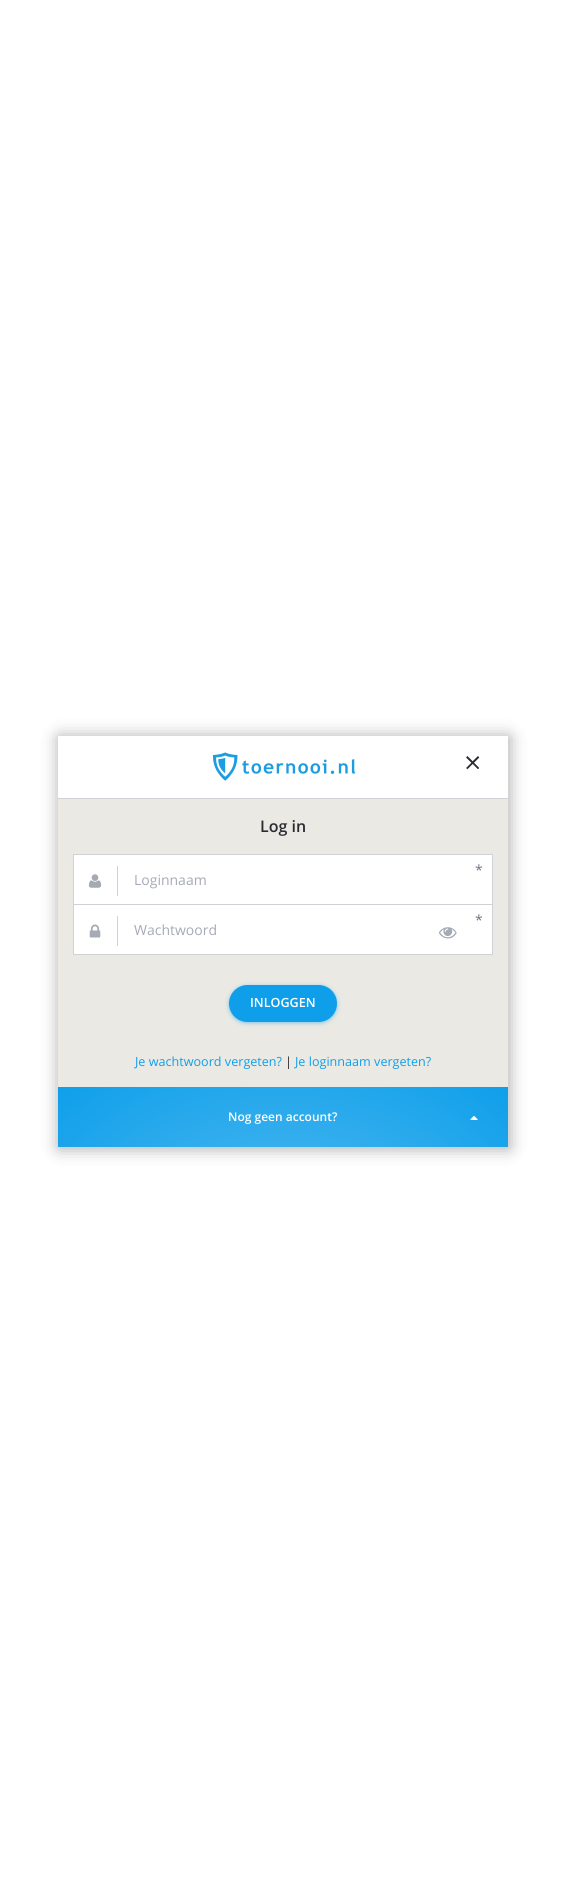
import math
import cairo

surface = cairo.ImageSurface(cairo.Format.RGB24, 566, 1883)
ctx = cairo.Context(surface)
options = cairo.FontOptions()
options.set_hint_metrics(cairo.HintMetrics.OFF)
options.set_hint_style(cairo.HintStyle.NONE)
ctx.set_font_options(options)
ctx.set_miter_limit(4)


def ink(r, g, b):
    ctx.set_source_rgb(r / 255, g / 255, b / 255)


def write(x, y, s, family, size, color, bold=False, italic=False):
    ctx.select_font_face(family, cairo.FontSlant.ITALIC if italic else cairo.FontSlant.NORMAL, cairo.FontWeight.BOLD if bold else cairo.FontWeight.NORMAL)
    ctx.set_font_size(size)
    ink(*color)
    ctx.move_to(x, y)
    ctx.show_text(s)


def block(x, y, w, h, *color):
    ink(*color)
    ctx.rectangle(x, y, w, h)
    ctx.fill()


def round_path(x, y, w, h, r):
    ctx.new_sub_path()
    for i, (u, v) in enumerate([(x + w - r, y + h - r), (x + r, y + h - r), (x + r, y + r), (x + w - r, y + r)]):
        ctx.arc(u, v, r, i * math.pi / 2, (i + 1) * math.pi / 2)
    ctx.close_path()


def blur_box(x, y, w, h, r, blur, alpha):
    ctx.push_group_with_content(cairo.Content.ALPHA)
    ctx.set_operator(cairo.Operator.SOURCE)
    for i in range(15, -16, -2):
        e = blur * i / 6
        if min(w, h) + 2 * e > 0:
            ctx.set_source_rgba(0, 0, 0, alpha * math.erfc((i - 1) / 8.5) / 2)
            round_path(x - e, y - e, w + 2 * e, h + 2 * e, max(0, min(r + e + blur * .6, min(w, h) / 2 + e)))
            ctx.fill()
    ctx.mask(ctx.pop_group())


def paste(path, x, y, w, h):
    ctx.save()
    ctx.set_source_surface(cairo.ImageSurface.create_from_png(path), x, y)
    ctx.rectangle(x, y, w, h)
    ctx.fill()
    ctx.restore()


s1 = dict(family="Open Sans SemiBold", size=16, color=(42, 44, 50))
s2 = dict(family="Open Sans", size=14, color=(166, 170, 181))
s3 = dict(family="Open Sans", size=14, color=(112, 117, 133))
s4 = dict(family="Open Sans SemiBold", size=12.6, color=(255, 255, 255))
s5 = dict(family="Open Sans", size=12.6, color=(15, 159, 234))
s6 = dict(family="Open Sans", size=12.6, color=(42, 44, 50))
s7 = dict(family="Open Sans SemiBold", size=12, color=(255, 255, 255))

ink(255, 255, 255)
ctx.paint()
ctx.save()
ctx.set_fill_rule(cairo.FillRule.EVEN_ODD)
ctx.new_path()
ctx.move_to(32, 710)
ctx.line_to(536, 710)
ctx.line_to(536, 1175)
ctx.line_to(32, 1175)
ctx.close_path()
ctx.move_to(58, 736)
ctx.line_to(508, 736)
ctx.line_to(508, 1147)
ctx.line_to(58, 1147)
ctx.close_path()
ctx.clip()
ink(0, 0, 0)
blur_box(59, 737, 450, 411, 0, 8.5, 0.35)
ctx.restore()
block(58, 798, 450, 1, 208, 210, 216)
paste("pic1.png", 212, 752, 144, 29)
paste("pic2.png", 466, 756, 14, 14)
block(58, 799, 450, 288, 234, 233, 228)
write(260, 832, "Log in", **s1)
ink(255, 255, 255)
ctx.rectangle(73.5, 854.5, 419, 50)
ctx.fill_preserve()
ink(208, 210, 216)
ctx.set_line_width(1)
ctx.stroke()
block(117, 866, 1, 30, 208, 210, 216)
paste("pic3.png", 88, 874, 14, 14)
write(134, 885, "Loginnaam", **s2)
write(475, 875, "*", **s3)
ink(255, 255, 255)
ctx.rectangle(73.5, 904.5, 419, 50)
ctx.fill_preserve()
ink(208, 210, 216)
ctx.stroke()
block(117, 916, 1, 30, 208, 210, 216)
paste("pic4.png", 89, 924, 12, 14)
write(134, 935, "Wachtwoord", **s2)
paste("pic5.png", 439, 927, 18, 12)
write(475, 925, "*", **s3)
ink(15, 159, 234)
blur_box(229, 986, 108, 37, 18.5, 2, 0.5)
ink(15, 159, 234)
round_path(229, 985, 108, 37, 18.5)
ctx.fill()
write(250, 1007, "INLOGGEN", **s4)
write(135, 1066, "Je wachtwoord vergeten?", **s5)
write(285, 1066, "|", **s6)
write(295, 1066, "Je loginnaam vergeten?", **s5)
gradient = cairo.RadialGradient(0, 0, 0, 0, 0, 1)
gradient.set_matrix(cairo.Matrix(1 / 318, 0, 0, 1 / 246, -1 * 283 / 318, -1 * 1261 / 246))
gradient.add_color_stop_rgba(0, 0.341, 0.737, 0.941, 1)
gradient.add_color_stop_rgba(1, 0.059, 0.624, 0.918, 1)
ctx.set_source(gradient)
ctx.rectangle(58, 1087, 450, 60)
ctx.fill()
write(228, 1121, "Nog geen account?", **s7)
paste("pic6.png", 470, 1116, 8, 4)
surface.write_to_png("screenshot.png")
